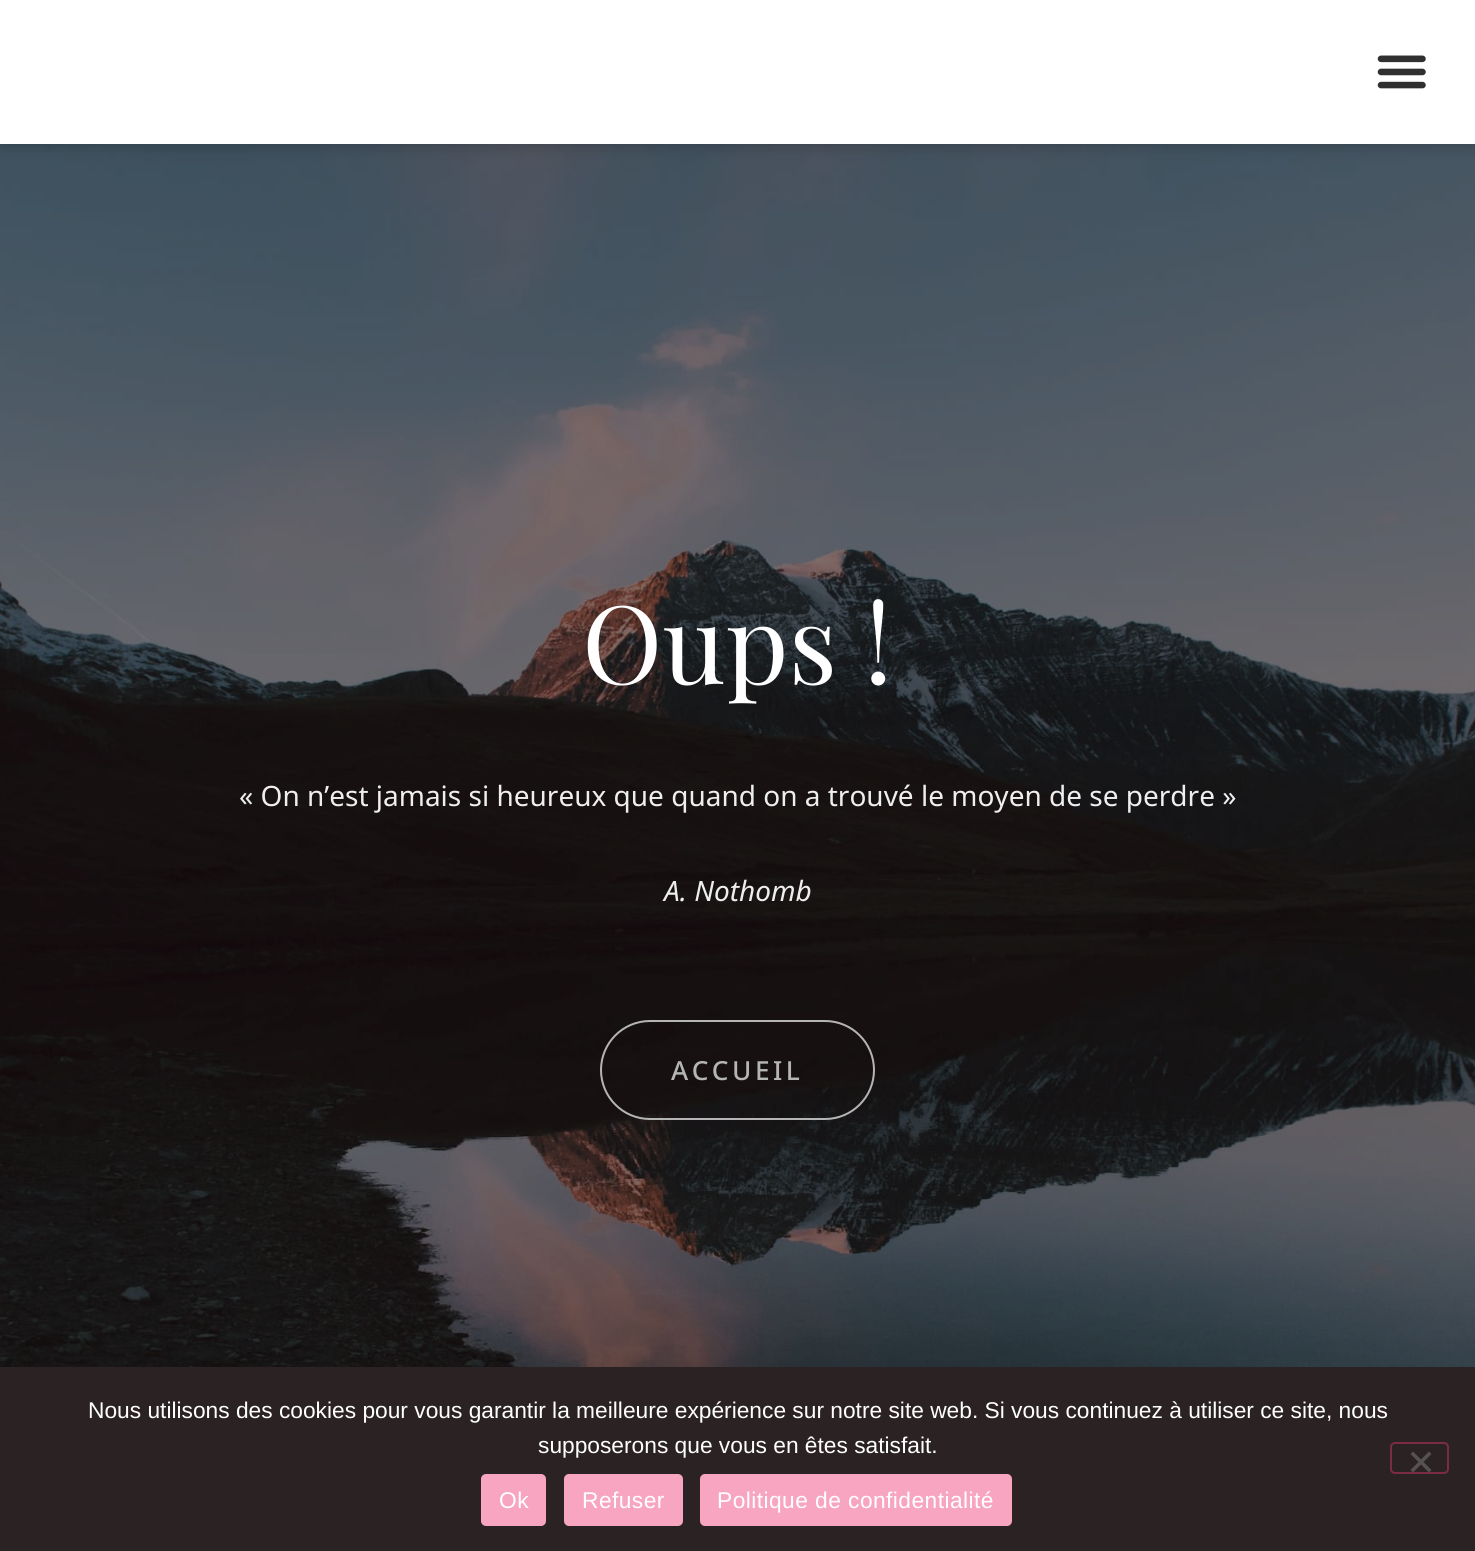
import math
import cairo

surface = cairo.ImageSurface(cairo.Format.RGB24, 1475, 1551)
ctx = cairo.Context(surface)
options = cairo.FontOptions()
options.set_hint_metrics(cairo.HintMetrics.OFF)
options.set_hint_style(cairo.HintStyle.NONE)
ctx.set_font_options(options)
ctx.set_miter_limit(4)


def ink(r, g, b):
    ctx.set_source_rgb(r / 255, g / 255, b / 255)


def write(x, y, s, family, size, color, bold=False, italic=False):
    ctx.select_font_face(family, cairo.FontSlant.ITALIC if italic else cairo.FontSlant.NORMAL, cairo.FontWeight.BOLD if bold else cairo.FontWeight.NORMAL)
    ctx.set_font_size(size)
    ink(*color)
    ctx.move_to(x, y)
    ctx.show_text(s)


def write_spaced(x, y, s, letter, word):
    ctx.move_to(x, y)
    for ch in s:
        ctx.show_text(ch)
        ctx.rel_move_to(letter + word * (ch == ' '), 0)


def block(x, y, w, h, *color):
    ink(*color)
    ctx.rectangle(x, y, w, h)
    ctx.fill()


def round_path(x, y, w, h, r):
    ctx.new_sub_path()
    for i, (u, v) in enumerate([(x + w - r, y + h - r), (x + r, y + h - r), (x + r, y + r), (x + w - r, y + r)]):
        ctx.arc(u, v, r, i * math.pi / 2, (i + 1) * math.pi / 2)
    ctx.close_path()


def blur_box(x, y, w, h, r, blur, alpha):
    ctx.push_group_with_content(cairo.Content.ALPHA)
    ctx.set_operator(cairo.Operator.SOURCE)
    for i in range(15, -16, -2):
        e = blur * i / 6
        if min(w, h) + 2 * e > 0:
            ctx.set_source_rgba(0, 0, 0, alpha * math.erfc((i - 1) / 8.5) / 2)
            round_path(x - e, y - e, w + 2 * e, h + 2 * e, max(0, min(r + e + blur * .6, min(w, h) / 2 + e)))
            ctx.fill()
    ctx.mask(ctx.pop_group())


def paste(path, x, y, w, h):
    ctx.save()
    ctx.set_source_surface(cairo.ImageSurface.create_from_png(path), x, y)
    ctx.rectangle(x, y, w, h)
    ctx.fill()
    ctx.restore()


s1 = dict(family="Playfair Display", size=108.5, color=(255, 255, 255))
s2 = dict(family="Noto Sans", size=28, color=(239, 238, 238))
s3 = dict(family="Noto Sans", size=28, color=(239, 238, 238), italic=True)
s4 = dict(family="Liberation Sans", size=22.75, color=(255, 255, 255))

ink(255, 255, 255)
ctx.paint()
paste("pic2.png", 0, 144, 1475, 1223)
ink(0, 0, 0)
blur_box(0, 0, 1475, 144, 0, 9, 0.25)
block(0, 0, 1475, 144, 255, 255, 255)
paste("pic1.png", 1377, 55, 49, 34)
write(582, 684, "Oups !", **s1)
write(239, 806, "« On n’est jamais si heureux que quand on a trouvé le moyen de se perdre »", **s2)
write(664, 901, "A. Nothomb", **s3)
round_path(601, 1021, 273, 98, 49)
ink(181, 181, 181)
ctx.stroke()
ctx.select_font_face("Noto Sans Medium")
ctx.set_font_size(26.25)
write_spaced(671, 1080, "ACCUEIL", 3.5, 0)
block(0, 1367, 1475, 184, 43, 35, 35)
write(88, 1418, "Nous utilisons des cookies pour vous garantir la meilleure expérience sur notre site web. Si vous continuez à utiliser ce site, nous", **s4)
write(538, 1453, "supposerons que vous en êtes satisfait.", **s4)
round_path(1391, 1443, 57, 30, 4)
ink(124, 43, 69)
ctx.stroke()
ink(86, 82, 82)
ctx.new_path()
ctx.move_to(1429, 1451.5)
ctx.line_to(1431.5, 1454)
ctx.line_to(1413, 1472.5)
ctx.line_to(1410.5, 1470)
ctx.close_path()
ctx.fill()
ctx.new_path()
ctx.move_to(1410.5, 1454)
ctx.line_to(1413, 1451.5)
ctx.line_to(1431.5, 1470)
ctx.line_to(1429, 1472.5)
ctx.close_path()
ctx.fill()
ink(248, 165, 194)
round_path(481, 1474, 65, 52, 5)
ctx.fill()
ink(255, 255, 255)
write_spaced(499, 1508, "Ok", 0.45, 0)
ink(248, 165, 194)
round_path(564, 1474, 119, 52, 5)
ctx.fill()
ink(255, 255, 255)
write_spaced(582, 1508, "Refuser", 0.45, 0)
ink(248, 165, 194)
round_path(700, 1474, 312, 52, 5)
ctx.fill()
ink(255, 255, 255)
write_spaced(717, 1508, "Politique de confidentialité", 0.45, 0)
surface.write_to_png("screenshot.png")
